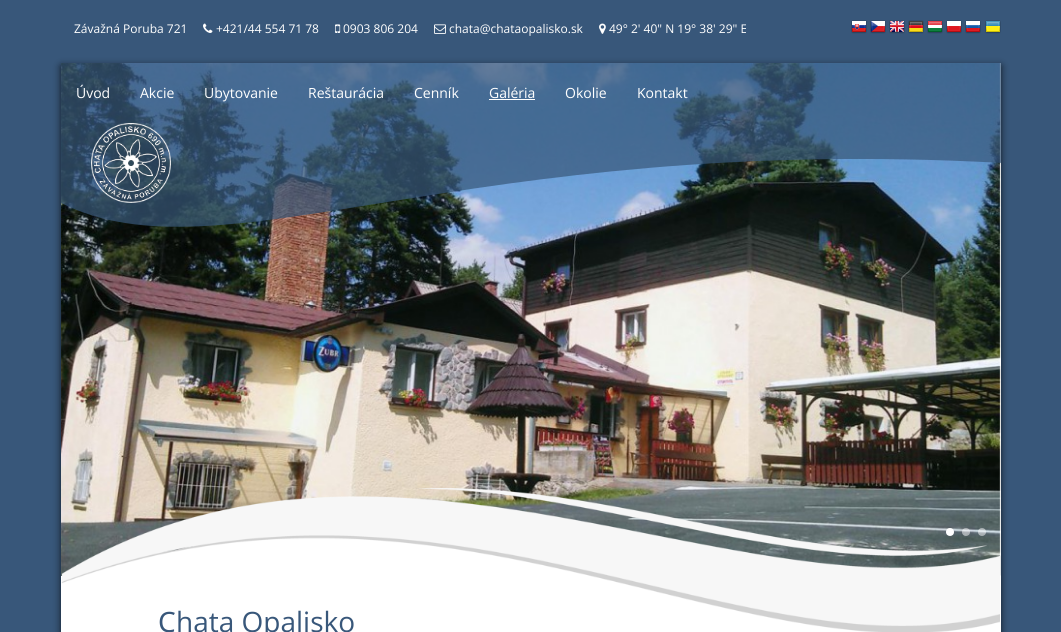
import math
import cairo

surface = cairo.ImageSurface(cairo.Format.RGB24, 1061, 632)
ctx = cairo.Context(surface)
options = cairo.FontOptions()
options.set_hint_metrics(cairo.HintMetrics.OFF)
options.set_hint_style(cairo.HintStyle.NONE)
ctx.set_font_options(options)
ctx.set_miter_limit(4)


def ink(r, g, b):
    ctx.set_source_rgb(r / 255, g / 255, b / 255)


def write(x, y, s, family, size, color, bold=False, italic=False):
    ctx.select_font_face(family, cairo.FontSlant.ITALIC if italic else cairo.FontSlant.NORMAL, cairo.FontWeight.BOLD if bold else cairo.FontWeight.NORMAL)
    ctx.set_font_size(size)
    ink(*color)
    ctx.move_to(x, y)
    ctx.show_text(s)


def block(x, y, w, h, *color):
    ink(*color)
    ctx.rectangle(x, y, w, h)
    ctx.fill()


def round_path(x, y, w, h, r):
    ctx.new_sub_path()
    for i, (u, v) in enumerate([(x + w - r, y + h - r), (x + r, y + h - r), (x + r, y + r), (x + w - r, y + r)]):
        ctx.arc(u, v, r, i * math.pi / 2, (i + 1) * math.pi / 2)
    ctx.close_path()


def blur_box(x, y, w, h, r, blur, alpha):
    ctx.push_group_with_content(cairo.Content.ALPHA)
    ctx.set_operator(cairo.Operator.SOURCE)
    for i in range(15, -16, -2):
        e = blur * i / 6
        if min(w, h) + 2 * e > 0:
            ctx.set_source_rgba(0, 0, 0, alpha * math.erfc((i - 1) / 8.5) / 2)
            round_path(x - e, y - e, w + 2 * e, h + 2 * e, max(0, min(r + e + blur * .6, min(w, h) / 2 + e)))
            ctx.fill()
    ctx.mask(ctx.pop_group())


def paste(path, x, y, w, h):
    ctx.save()
    ctx.set_source_surface(cairo.ImageSurface.create_from_png(path), x, y)
    ctx.rectangle(x, y, w, h)
    ctx.fill()
    ctx.restore()


s1 = dict(family="Open Sans", size=12, color=(255, 255, 255))
s2 = dict(family="Open Sans", size=14, color=(255, 255, 255))
s3 = dict(family="Noto Sans", size=28, color=(56, 87, 122))
s4 = dict(family="Open Sans", size=28, color=(56, 87, 122))

ink(56, 87, 122)
ctx.paint()
write(74, 33, "Závažná Poruba 721", **s1)
paste("pic1.png", 203, 23, 10, 10)
write(216, 33, "+421/44 554 71 78", **s1)
paste("pic2.png", 335, 24, 6, 9)
write(343, 33, "0903 806 204", **s1)
paste("pic3.png", 434, 24, 12, 10)
write(449, 33, "chata@chataopalisko.sk", **s1)
paste("pic4.png", 599, 23, 7, 11)
write(609, 33, "49° 2' 40\" N 19° 38' 29\" E", **s1)
paste("pic5.png", 851, 20, 16, 14)
paste("pic6.png", 870, 20, 16, 14)
paste("pic7.png", 889, 20, 16, 14)
paste("pic8.png", 908, 20, 16, 14)
paste("pic9.png", 927, 20, 16, 14)
paste("pic10.png", 946, 20, 16, 14)
paste("pic11.png", 965, 20, 16, 14)
paste("pic12.png", 985, 20, 16, 14)
ink(0, 0, 0)
blur_box(61, 66, 940, 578, 0, 4, 0.7)
block(61, 63, 940, 569, 255, 255, 255)
paste("pic13.png", 61, 63, 940, 513)
paste("pic15.png", 61, 488, 939, 144)
ctx.arc(950, 532, 4, 0, 2 * math.pi)
ctx.fill()
ctx.set_source_rgba(1, 1, 1, 0.5)
ctx.arc(966, 532, 4, 0, 2 * math.pi)
ctx.fill()
ctx.arc(982, 532, 4, 0, 2 * math.pi)
ctx.fill()
ctx.save()
ctx.rectangle(61, 123, 940, 166)
ctx.clip()
ctx.set_source_rgba(0.22, 0.341, 0.478, 0.7)
ctx.new_path()
ctx.move_to(61, 203)
ctx.curve_to(221, 283, 461, 133, 1003, 163)
ctx.line_to(1003, 123)
ctx.line_to(61, 123)
ctx.close_path()
ctx.fill()
ctx.restore()
paste("pic14.png", 91, 123, 80, 80)
ctx.set_source_rgba(0.22, 0.341, 0.478, 0.7)
ctx.rectangle(61, 63, 940, 60)
ctx.fill()
write(76, 98, "Úvod", **s2)
write(140, 98, "Akcie", **s2)
write(204, 98, "Ubytovanie", **s2)
write(308, 98, "Reštaurácia", **s2)
write(414, 98, "Cenník", **s2)
write(489, 98, "Galéria", **s2)
block(489, 99, 46, 1, 255, 255, 255)
write(565, 98, "Okolie", **s2)
write(637, 98, "Kontakt", **s2)
write(158, 632, "C", **s3)
write(176, 632, "hata Opalisko", **s4)
surface.write_to_png("screenshot.png")
